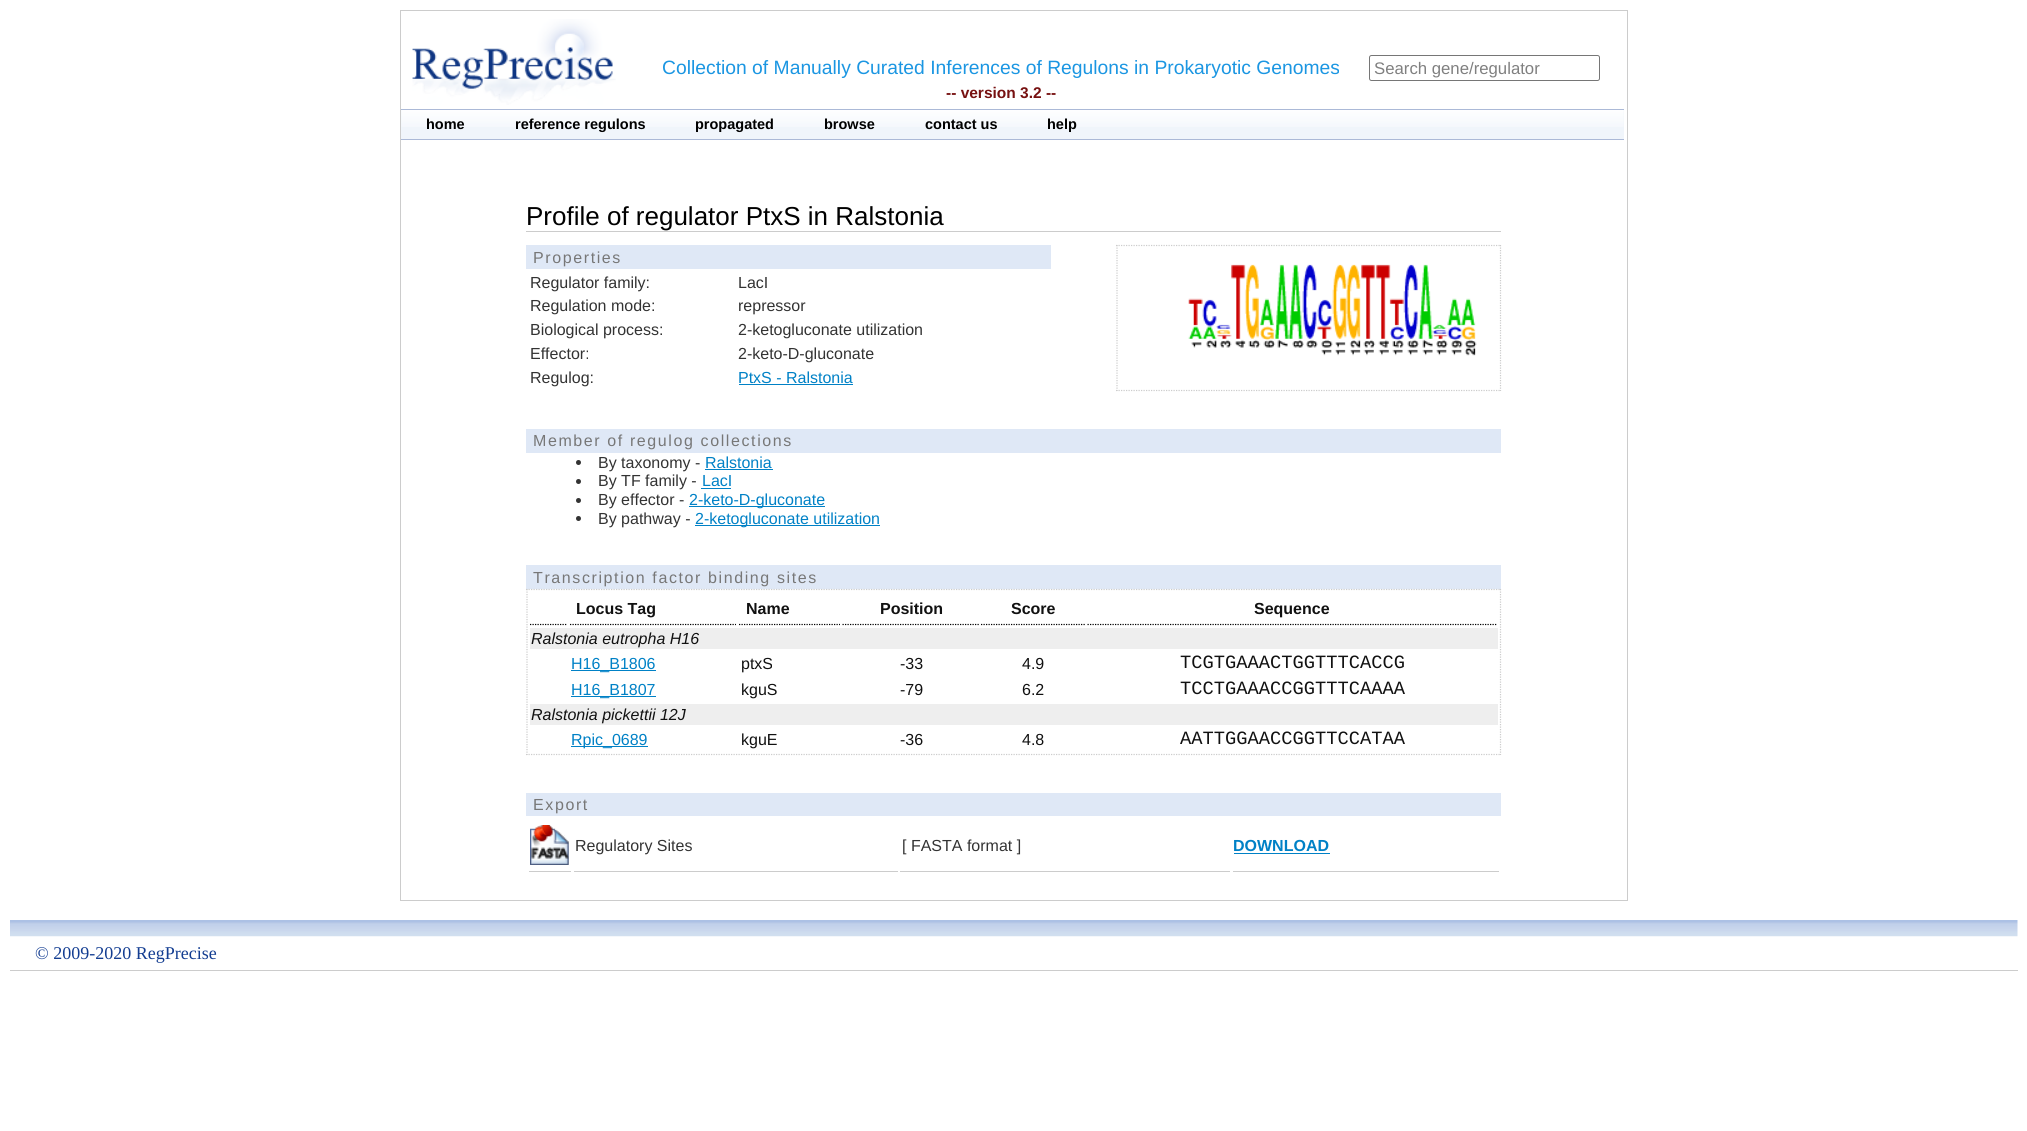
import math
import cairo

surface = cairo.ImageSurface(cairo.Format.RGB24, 2027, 1131)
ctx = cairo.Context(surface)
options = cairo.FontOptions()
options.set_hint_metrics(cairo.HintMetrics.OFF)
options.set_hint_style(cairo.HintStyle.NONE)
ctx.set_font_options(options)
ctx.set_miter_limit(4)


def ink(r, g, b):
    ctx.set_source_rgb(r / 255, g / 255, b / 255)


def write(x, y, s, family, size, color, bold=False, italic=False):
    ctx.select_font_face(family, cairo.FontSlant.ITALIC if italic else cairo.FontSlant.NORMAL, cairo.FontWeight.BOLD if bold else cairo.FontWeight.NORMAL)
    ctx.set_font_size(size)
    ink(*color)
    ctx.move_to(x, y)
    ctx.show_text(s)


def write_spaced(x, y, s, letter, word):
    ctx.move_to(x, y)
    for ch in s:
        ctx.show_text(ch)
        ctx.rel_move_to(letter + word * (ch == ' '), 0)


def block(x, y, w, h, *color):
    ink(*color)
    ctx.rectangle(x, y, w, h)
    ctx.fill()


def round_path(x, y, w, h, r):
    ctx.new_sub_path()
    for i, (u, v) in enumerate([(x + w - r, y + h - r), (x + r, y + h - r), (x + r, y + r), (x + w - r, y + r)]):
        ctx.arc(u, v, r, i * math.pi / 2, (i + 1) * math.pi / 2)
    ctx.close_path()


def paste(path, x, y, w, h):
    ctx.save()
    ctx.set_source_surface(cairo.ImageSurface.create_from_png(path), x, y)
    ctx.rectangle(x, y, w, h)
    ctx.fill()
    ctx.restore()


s1 = dict(family="Liberation Sans", size=19.3, color=(27, 150, 226))
s2 = dict(family="Liberation Sans", size=15.5, color=(119, 17, 17), bold=True)
s3 = dict(family="Liberation Sans", size=16.75, color=(128, 128, 128))
s4 = dict(family="Liberation Sans", size=14.5, color=(0, 0, 0), bold=True)
s5 = dict(family="Liberation Sans", size=26, color=(0, 0, 0))
s6 = dict(family="Liberation Sans", size=16, color=(51, 51, 51))
s7 = dict(family="Liberation Sans", size=16, color=(0, 129, 198))
s8 = dict(family="Liberation Sans", size=16, color=(17, 17, 17), bold=True)
s9 = dict(family="Liberation Sans", size=16, color=(17, 17, 17), italic=True)
s10 = dict(family="Liberation Sans", size=16, color=(17, 17, 17))
s11 = dict(family="Liberation Mono", size=18.75, color=(17, 17, 17))
s12 = dict(family="Liberation Sans", size=16, color=(0, 129, 198), bold=True)
s13 = dict(family="Liberation Serif", size=18, color=(19, 61, 145))

ink(255, 255, 255)
ctx.paint()
ctx.rectangle(400.5, 10.5, 1227, 890)
ink(204, 204, 204)
ctx.set_line_width(1)
ctx.stroke()
paste("pic1.png", 412, 19, 204, 86)
write(662, 74, "Collection of Manually Curated Inferences of Regulons in Prokaryotic Genomes", **s1)
write(946, 98, "-- version 3.2 --", **s2)
round_path(1369.5, 55.5, 230, 25, 2)
ink(118, 118, 118)
ctx.stroke()
write(1374, 74, "Search gene/regulator", **s3)
block(401, 110, 1223, 29, 240, 245, 251)
paste("pic2.png", 401, 110, 1223, 17)
block(401, 109, 1223, 1, 171, 185, 215)
block(401, 139, 1223, 1, 171, 185, 215)
write(426, 129, "home", **s4)
write(515, 129, "reference regulons", **s4)
write(695, 129, "propagated", **s4)
write(824, 129, "browse", **s4)
write(925, 129, "contact us", **s4)
write(1047, 129, "help", **s4)
block(526, 231, 975, 1, 204, 204, 204)
write(526, 225, "Profile of regulator PtxS in Ralstonia", **s5)
block(526, 245, 525, 24, 223, 232, 246)
ctx.set_font_size(16)
ink(119, 119, 119)
write_spaced(533, 263, "Properties", 1.6, 0)
write(530, 288, "Regulator family:", **s6)
write(738, 288, "LacI", **s6)
write(530, 311, "Regulation mode:", **s6)
write(738, 311, "repressor", **s6)
write(530, 335, "Biological process:", **s6)
write(738, 335, "2-ketogluconate utilization", **s6)
write(530, 359, "Effector:", **s6)
write(738, 359, "2-keto-D-gluconate", **s6)
write(530, 383, "Regulog:", **s6)
write(738, 383, "PtxS - Ralstonia", **s7)
block(739, 384, 114, 1, 0, 129, 198)
ctx.new_path()
ctx.move_to(1116, 245.5)
ctx.line_to(1501, 245.5)
ink(204, 204, 204)
ctx.set_line_width(1.2)
ctx.set_dash([1.25, 1.25])
ctx.stroke()
ctx.new_path()
ctx.move_to(1500.5, 245)
ctx.line_to(1500.5, 391)
ctx.stroke()
ctx.new_path()
ctx.move_to(1116, 390.5)
ctx.line_to(1501, 390.5)
ctx.stroke()
ctx.new_path()
ctx.move_to(1117, 245)
ctx.line_to(1117, 391)
ctx.stroke()
paste("pic3.png", 1188, 264, 289, 92)
block(526, 429, 975, 24, 223, 232, 246)
ink(119, 119, 119)
write_spaced(533, 446, "Member of regulog collections", 1.6, 0)
ink(51, 51, 51)
ctx.new_path()
ctx.arc(578.5, 462.5, 2.5, 0, 2 * math.pi)
ctx.fill()
write(598, 468, "By taxonomy -", **s6)
write(705, 468, "Ralstonia", **s7)
block(705, 469, 68, 1, 0, 129, 198)
ink(51, 51, 51)
ctx.new_path()
ctx.arc(578.5, 481.5, 2.5, 0, 2 * math.pi)
ctx.fill()
write(598, 486, "By TF family -", **s6)
write(702, 486, "LacI", **s7)
block(701, 488, 30, 1, 0, 129, 198)
ink(51, 51, 51)
ctx.new_path()
ctx.arc(578.5, 500.5, 2.5, 0, 2 * math.pi)
ctx.fill()
write(598, 505, "By effector -", **s6)
block(689, 506, 136, 1, 0, 129, 198)
write(689, 505, "2-keto-D-gluconate", **s7)
ink(51, 51, 51)
ctx.new_path()
ctx.arc(578.5, 518.5, 2.5, 0, 2 * math.pi)
ctx.fill()
write(598, 524, "By pathway -", **s6)
block(695, 525, 185, 1, 0, 129, 198)
write(695, 524, "2-ketogluconate utilization", **s7)
block(526, 565, 975, 24, 223, 232, 246)
ink(119, 119, 119)
write_spaced(533, 583, "Transcription factor binding sites", 1.6, 0)
ctx.new_path()
ctx.move_to(526, 589.5)
ctx.line_to(1501, 589.5)
ink(204, 204, 204)
ctx.stroke()
ctx.new_path()
ctx.move_to(1500.5, 589)
ctx.line_to(1500.5, 755)
ctx.stroke()
ctx.new_path()
ctx.move_to(526, 754.5)
ctx.line_to(1501, 754.5)
ctx.stroke()
ctx.new_path()
ctx.move_to(527, 589)
ctx.line_to(527, 755)
ctx.stroke()
ctx.new_path()
ctx.move_to(570, 624.5)
ctx.line_to(736, 624.5)
ink(0, 0, 0)
ctx.stroke()
write(576, 614, "Locus Tag", **s8)
ctx.new_path()
ctx.move_to(739, 624.5)
ctx.line_to(840, 624.5)
ink(0, 0, 0)
ctx.stroke()
write(746, 614, "Name", **s8)
ctx.new_path()
ctx.move_to(842.5, 624.5)
ctx.line_to(979, 624.5)
ink(0, 0, 0)
ctx.stroke()
write(880, 614, "Position", **s8)
ctx.new_path()
ctx.move_to(981, 624.5)
ctx.line_to(1085, 624.5)
ink(0, 0, 0)
ctx.stroke()
write(1011, 614, "Score", **s8)
ctx.new_path()
ctx.move_to(1087.5, 624.5)
ctx.line_to(1497.5, 624.5)
ink(0, 0, 0)
ctx.stroke()
write(1254, 614, "Sequence", **s8)
ctx.new_path()
ctx.move_to(530, 624.5)
ctx.line_to(567.5, 624.5)
ink(0, 0, 0)
ctx.stroke()
block(530, 628, 968, 21, 238, 238, 238)
write(531, 644, "Ralstonia eutropha H16", **s9)
block(571, 670, 85, 1, 0, 129, 198)
write(571, 669, "H16_B1806", **s7)
write(741, 669, "ptxS", **s10)
write(900, 669, "-33", **s10)
write(1022, 669, "4.9", **s10)
write(1180, 668, "TCGTGAAACTGGTTTCACCG", **s11)
block(571, 696, 85, 1, 0, 129, 198)
write(571, 695, "H16_B1807", **s7)
write(741, 695, "kguS", **s10)
write(900, 695, "-79", **s10)
write(1022, 695, "6.2", **s10)
write(1180, 694, "TCCTGAAACCGGTTTCAAAA", **s11)
block(530, 704, 968, 21, 238, 238, 238)
write(531, 720, "Ralstonia pickettii 12J", **s9)
block(571, 746, 77, 1, 0, 129, 198)
write(571, 745, "Rpic_0689", **s7)
write(741, 745, "kguE", **s10)
write(900, 745, "-36", **s10)
write(1022, 745, "4.8", **s10)
write(1180, 744, "AATTGGAACCGGTTCCATAA", **s11)
block(526, 793, 975, 23, 223, 232, 246)
ctx.select_font_face("Liberation Sans")
ctx.set_font_size(16)
ink(119, 119, 119)
write_spaced(533, 810, "Export", 1.6, 0)
block(529, 871, 42, 1, 204, 204, 204)
paste("pic4.png", 530, 825, 39, 40)
block(574, 871, 324, 1, 204, 204, 204)
write(575, 851, "Regulatory Sites", **s6)
block(900, 871, 330, 1, 204, 204, 204)
write(902, 851, "[ FASTA format ]", **s6)
block(1233, 871, 266, 1, 204, 204, 204)
write(1233, 851, "DOWNLOAD", **s12)
block(1234, 853, 96, 1, 0, 129, 198)
paste("pic5.png", 10, 920, 2008, 17)
write(35, 959, "© 2009-2020 RegPrecise", **s13)
block(10, 970, 2008, 1, 204, 204, 204)
surface.write_to_png("screenshot.png")
